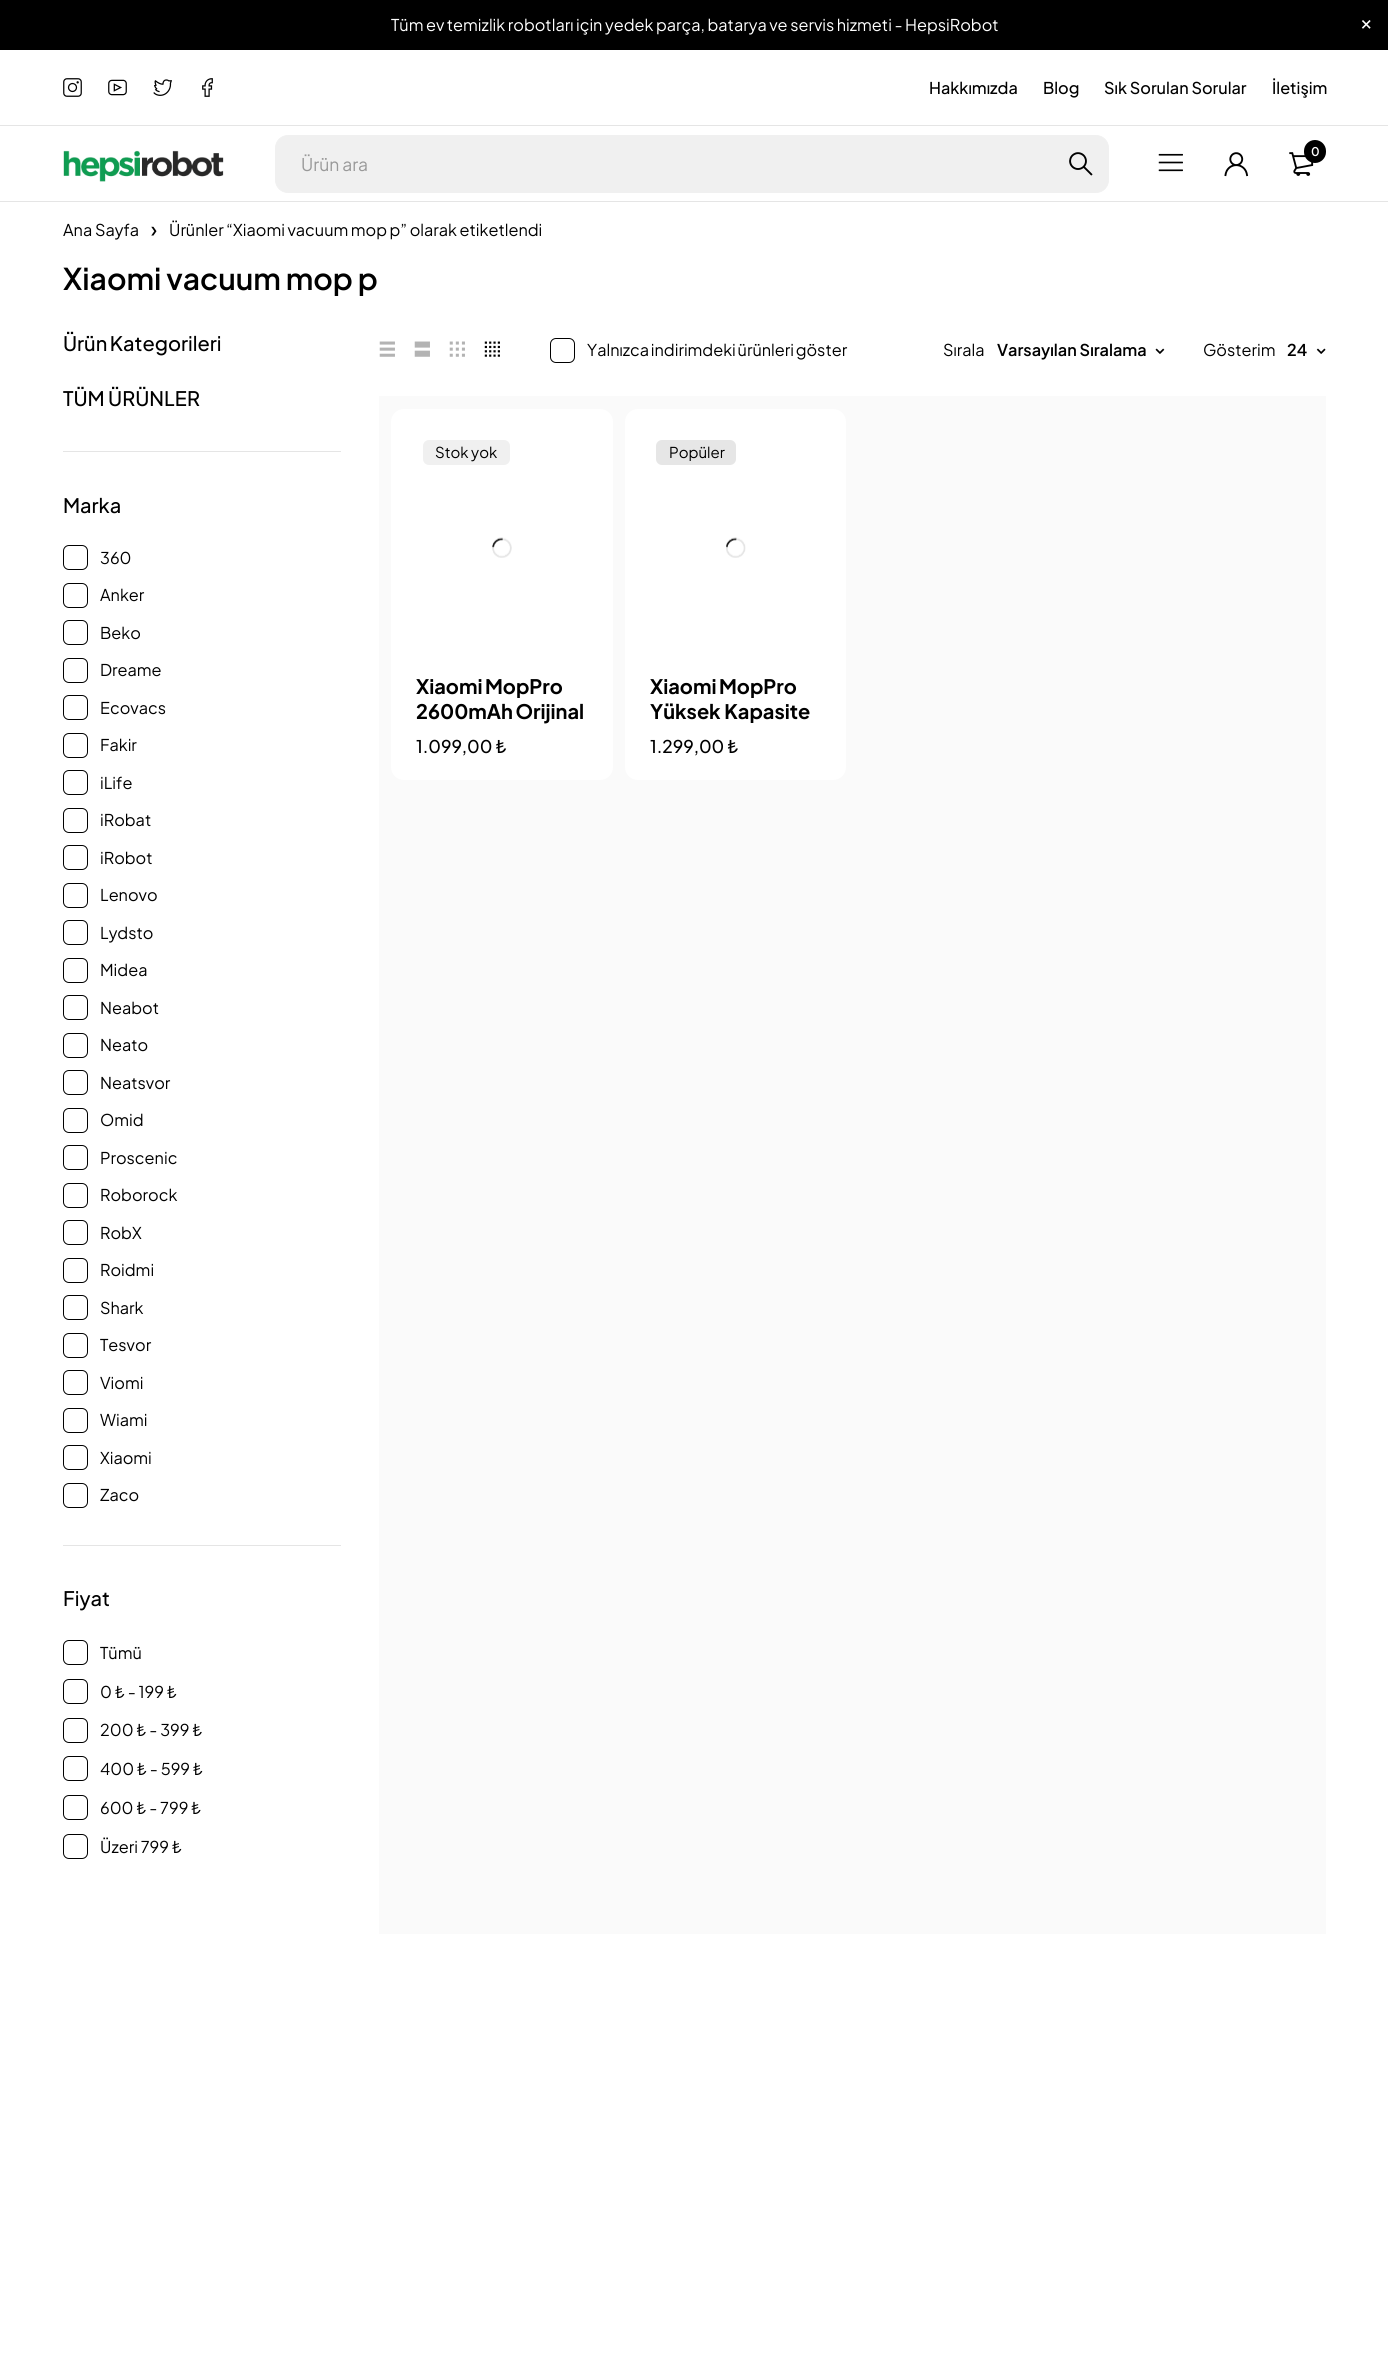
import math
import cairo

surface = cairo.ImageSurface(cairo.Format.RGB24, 1388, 2353)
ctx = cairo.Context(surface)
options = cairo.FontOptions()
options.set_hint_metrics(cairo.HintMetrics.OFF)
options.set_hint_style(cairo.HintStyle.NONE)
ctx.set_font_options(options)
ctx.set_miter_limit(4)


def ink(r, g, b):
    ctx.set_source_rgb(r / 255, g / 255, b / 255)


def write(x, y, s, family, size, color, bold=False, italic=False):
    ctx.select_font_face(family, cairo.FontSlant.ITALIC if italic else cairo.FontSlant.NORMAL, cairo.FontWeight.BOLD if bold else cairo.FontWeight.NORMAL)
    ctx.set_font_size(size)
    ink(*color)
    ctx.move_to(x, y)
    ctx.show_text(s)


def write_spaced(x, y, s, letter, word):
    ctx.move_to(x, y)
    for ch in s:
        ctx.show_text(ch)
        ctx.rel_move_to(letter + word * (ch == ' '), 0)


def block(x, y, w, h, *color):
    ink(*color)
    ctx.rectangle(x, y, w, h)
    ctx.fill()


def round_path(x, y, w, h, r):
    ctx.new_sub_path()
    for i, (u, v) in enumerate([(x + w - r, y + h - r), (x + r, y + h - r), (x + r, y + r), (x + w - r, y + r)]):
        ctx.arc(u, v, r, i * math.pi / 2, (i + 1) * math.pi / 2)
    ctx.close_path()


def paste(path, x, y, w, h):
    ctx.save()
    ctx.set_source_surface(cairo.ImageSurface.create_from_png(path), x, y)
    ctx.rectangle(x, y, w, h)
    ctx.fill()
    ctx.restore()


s1 = dict(family="Plus Jakarta Sans Medium", size=16.25, color=(0, 0, 0))
s2 = dict(family="Plus Jakarta Sans", size=17.5, color=(153, 153, 153))
s3 = dict(family="Plus Jakarta Sans SemiBold", size=12, color=(255, 255, 255))
s4 = dict(family="Plus Jakarta Sans", size=16.25, color=(0, 0, 0))
s5 = dict(family="Plus Jakarta Sans Medium", size=20, color=(0, 0, 0))
s6 = dict(family="Plus Jakarta Sans SemiBold", size=16.25, color=(0, 0, 0))
s7 = dict(family="Plus Jakarta Sans", size=15, color=(0, 0, 0))
s8 = dict(family="Plus Jakarta Sans Medium", size=17.5, color=(0, 0, 0))
s9 = dict(family="Plus Jakarta Sans", size=20, color=(0, 0, 0), bold=True)

ink(255, 255, 255)
ctx.paint()
block(0, 0, 1388, 50, 0, 0, 0)
ctx.select_font_face("Plus Jakarta Sans")
ctx.set_font_size(16.25)
ink(255, 255, 255)
write_spaced(391, 31, "Tüm ev temizlik robotları için yedek parça, batarya ve servis hizmeti - HepsiRobot", 0, -0.25)
paste("pic1.png", 1361, 20, 10, 9)
block(0, 125, 1388, 1, 229, 229, 229)
paste("pic2.png", 63, 78, 19, 19)
paste("pic3.png", 108, 79, 19, 17)
paste("pic4.png", 153, 79, 19, 17)
paste("pic5.png", 202, 78, 11, 19)
write(929, 94, "Hakkımızda", **s1)
write(1043, 94, "Blog", **s1)
write(1104, 94, "Sık Sorulan Sorular", **s1)
write(1272, 94, "İletişim", **s1)
paste("pic6.png", 63, 150, 161, 32)
ink(240, 240, 240)
round_path(275.5, 135.5, 833, 57, 12.5)
ctx.fill_preserve()
ctx.set_line_width(1)
ctx.stroke()
write(301, 171, "Ürün ara", **s2)
paste("pic7.png", 1069, 152, 24, 24)
paste("pic8.png", 1158, 153, 25, 19)
paste("pic9.png", 1224, 152, 25, 25)
paste("pic10.png", 1289, 152, 25, 24)
ink(0, 0, 0)
round_path(1304, 140, 22, 23, 11)
ctx.fill()
write(1311, 156, "0", **s3)
block(0, 201, 1388, 1, 229, 229, 229)
write(63, 236, "Ana Sayfa", **s4)
paste("pic11.png", 151, 226, 6, 10)
write_spaced(169, 236, "Ürünler “Xiaomi vacuum mop p” olarak etiketlendi", 0, -0.25)
ctx.select_font_face("Plus Jakarta Sans SemiBold")
ctx.set_font_size(30)
write_spaced(63, 290, "Xiaomi vacuum mop p", 0, -0.5)
ctx.select_font_face("Plus Jakarta Sans Medium")
ctx.set_font_size(20)
write_spaced(63, 351, "Ürün Kategorileri", 0, -1)
write(63, 406, "TÜM ÜRÜNLER", **s5)
block(63, 451, 278, 1, 229, 229, 229)
write(63, 513, "Marka", **s5)
round_path(63.5, 545.5, 24, 24, 5.5)
ctx.stroke()
write(100, 564, "360", **s4)
round_path(63.5, 583.5, 24, 24, 5.5)
ctx.stroke()
write(100, 601, "Anker", **s4)
round_path(63.5, 620.5, 24, 24, 5.5)
ctx.stroke()
write(100, 639, "Beko", **s4)
round_path(63.5, 658.5, 24, 24, 5.5)
ctx.stroke()
write(100, 676, "Dreame", **s4)
round_path(63.5, 695.5, 24, 24, 5.5)
ctx.stroke()
write(100, 714, "Ecovacs", **s4)
round_path(63.5, 733.5, 24, 24, 5.5)
ctx.stroke()
write(100, 751, "Fakir", **s4)
round_path(63.5, 770.5, 24, 24, 5.5)
ctx.stroke()
write(100, 789, "iLife", **s4)
round_path(63.5, 808.5, 24, 24, 5.5)
ctx.stroke()
write(100, 826, "iRobat", **s4)
round_path(63.5, 845.5, 24, 24, 5.5)
ctx.stroke()
write(100, 864, "iRobot", **s4)
round_path(63.5, 883.5, 24, 24, 5.5)
ctx.stroke()
write(100, 901, "Lenovo", **s4)
round_path(63.5, 920.5, 24, 24, 5.5)
ctx.stroke()
write(100, 939, "Lydsto", **s4)
round_path(63.5, 958.5, 24, 24, 5.5)
ctx.stroke()
write(100, 976, "Midea", **s4)
round_path(63.5, 995.5, 24, 24, 5.5)
ctx.stroke()
write(100, 1014, "Neabot", **s4)
round_path(63.5, 1033.5, 24, 24, 5.5)
ctx.stroke()
write(100, 1051, "Neato", **s4)
round_path(63.5, 1070.5, 24, 24, 5.5)
ctx.stroke()
write(100, 1089, "Neatsvor", **s4)
round_path(63.5, 1108.5, 24, 24, 5.5)
ctx.stroke()
write(100, 1126, "Omid", **s4)
round_path(63.5, 1145.5, 24, 24, 5.5)
ctx.stroke()
write(100, 1164, "Proscenic", **s4)
round_path(63.5, 1183.5, 24, 24, 5.5)
ctx.stroke()
write(100, 1201, "Roborock", **s4)
round_path(63.5, 1220.5, 24, 24, 5.5)
ctx.stroke()
write(100, 1239, "RobX", **s4)
round_path(63.5, 1258.5, 24, 24, 5.5)
ctx.stroke()
write(100, 1276, "Roidmi", **s4)
round_path(63.5, 1295.5, 24, 24, 5.5)
ctx.stroke()
write(100, 1314, "Shark", **s4)
round_path(63.5, 1333.5, 24, 24, 5.5)
ctx.stroke()
write(100, 1351, "Tesvor", **s4)
round_path(63.5, 1370.5, 24, 24, 5.5)
ctx.stroke()
write(100, 1389, "Viomi", **s4)
round_path(63.5, 1408.5, 24, 24, 5.5)
ctx.stroke()
write(100, 1426, "Wiami", **s4)
round_path(63.5, 1445.5, 24, 24, 5.5)
ctx.stroke()
write(100, 1464, "Xiaomi", **s4)
round_path(63.5, 1483.5, 24, 24, 5.5)
ctx.stroke()
write(100, 1501, "Zaco", **s4)
block(63, 1545, 278, 1, 229, 229, 229)
write(63, 1606, "Fiyat", **s5)
round_path(63.5, 1640.5, 24, 24, 5.5)
ctx.stroke()
write(100, 1659, "Tümü", **s4)
round_path(63.5, 1679.5, 24, 24, 5.5)
ctx.stroke()
write(100, 1698, "0 ₺ - 199 ₺", **s4)
round_path(63.5, 1718.5, 24, 24, 5.5)
ctx.stroke()
write(100, 1736, "200 ₺ - 399 ₺", **s4)
round_path(63.5, 1756.5, 24, 24, 5.5)
ctx.stroke()
write(100, 1775, "400 ₺ - 599 ₺", **s4)
round_path(63.5, 1795.5, 24, 24, 5.5)
ctx.stroke()
write(100, 1814, "600 ₺ - 799 ₺", **s4)
round_path(63.5, 1834.5, 24, 24, 5.5)
ctx.stroke()
write(100, 1853, "Üzeri 799 ₺", **s4)
paste("pic12.png", 379, 341, 16, 16)
paste("pic13.png", 414, 341, 16, 16)
paste("pic14.png", 449, 341, 16, 16)
paste("pic15.png", 484, 341, 16, 16)
round_path(550.5, 338.5, 24, 24, 5.5)
ctx.stroke()
write_spaced(587, 356, "Yalnızca indirimdeki ürünleri göster", 0, -1)
write(943, 356, "Sırala", **s4)
write(997, 356, "Varsayılan Sıralama", **s6)
paste("pic16.png", 1155, 348, 10, 6)
write(1203, 356, "Gösterim", **s4)
write(1287, 356, "24", **s6)
paste("pic17.png", 1316, 348, 10, 6)
block(379, 396, 947, 1538, 250, 250, 250)
ink(255, 255, 255)
round_path(391, 409, 222, 371, 13)
ctx.fill()
ink(240, 240, 240)
round_path(423, 440, 87, 25, 6)
ctx.fill()
write(435, 458, "Stok yok", **s7)
paste("pic18.png", 492, 537, 20, 21)
ctx.select_font_face("Plus Jakarta Sans", cairo.FontSlant.NORMAL, cairo.FontWeight.BOLD)
ctx.set_font_size(20)
write_spaced(416, 694, "Xiaomi MopPro", 0, -1)
write_spaced(416, 719, "2600mAh Orijinal", 0, -1)
write(416, 753, "1.099,00 ₺", **s8)
ink(255, 255, 255)
round_path(625, 409, 221, 371, 13)
ctx.fill()
ink(230, 230, 230)
round_path(656, 440, 80, 25, 6)
ctx.fill()
write(669, 458, "Popüler", **s7)
paste("pic19.png", 726, 537, 20, 21)
ctx.select_font_face("Plus Jakarta Sans", cairo.FontSlant.NORMAL, cairo.FontWeight.BOLD)
ctx.set_font_size(20)
write_spaced(650, 694, "Xiaomi MopPro", 0, -1)
write(650, 719, "Yüksek Kapasite", **s9)
write(650, 753, "1.299,00 ₺", **s8)
surface.write_to_png("screenshot.png")
